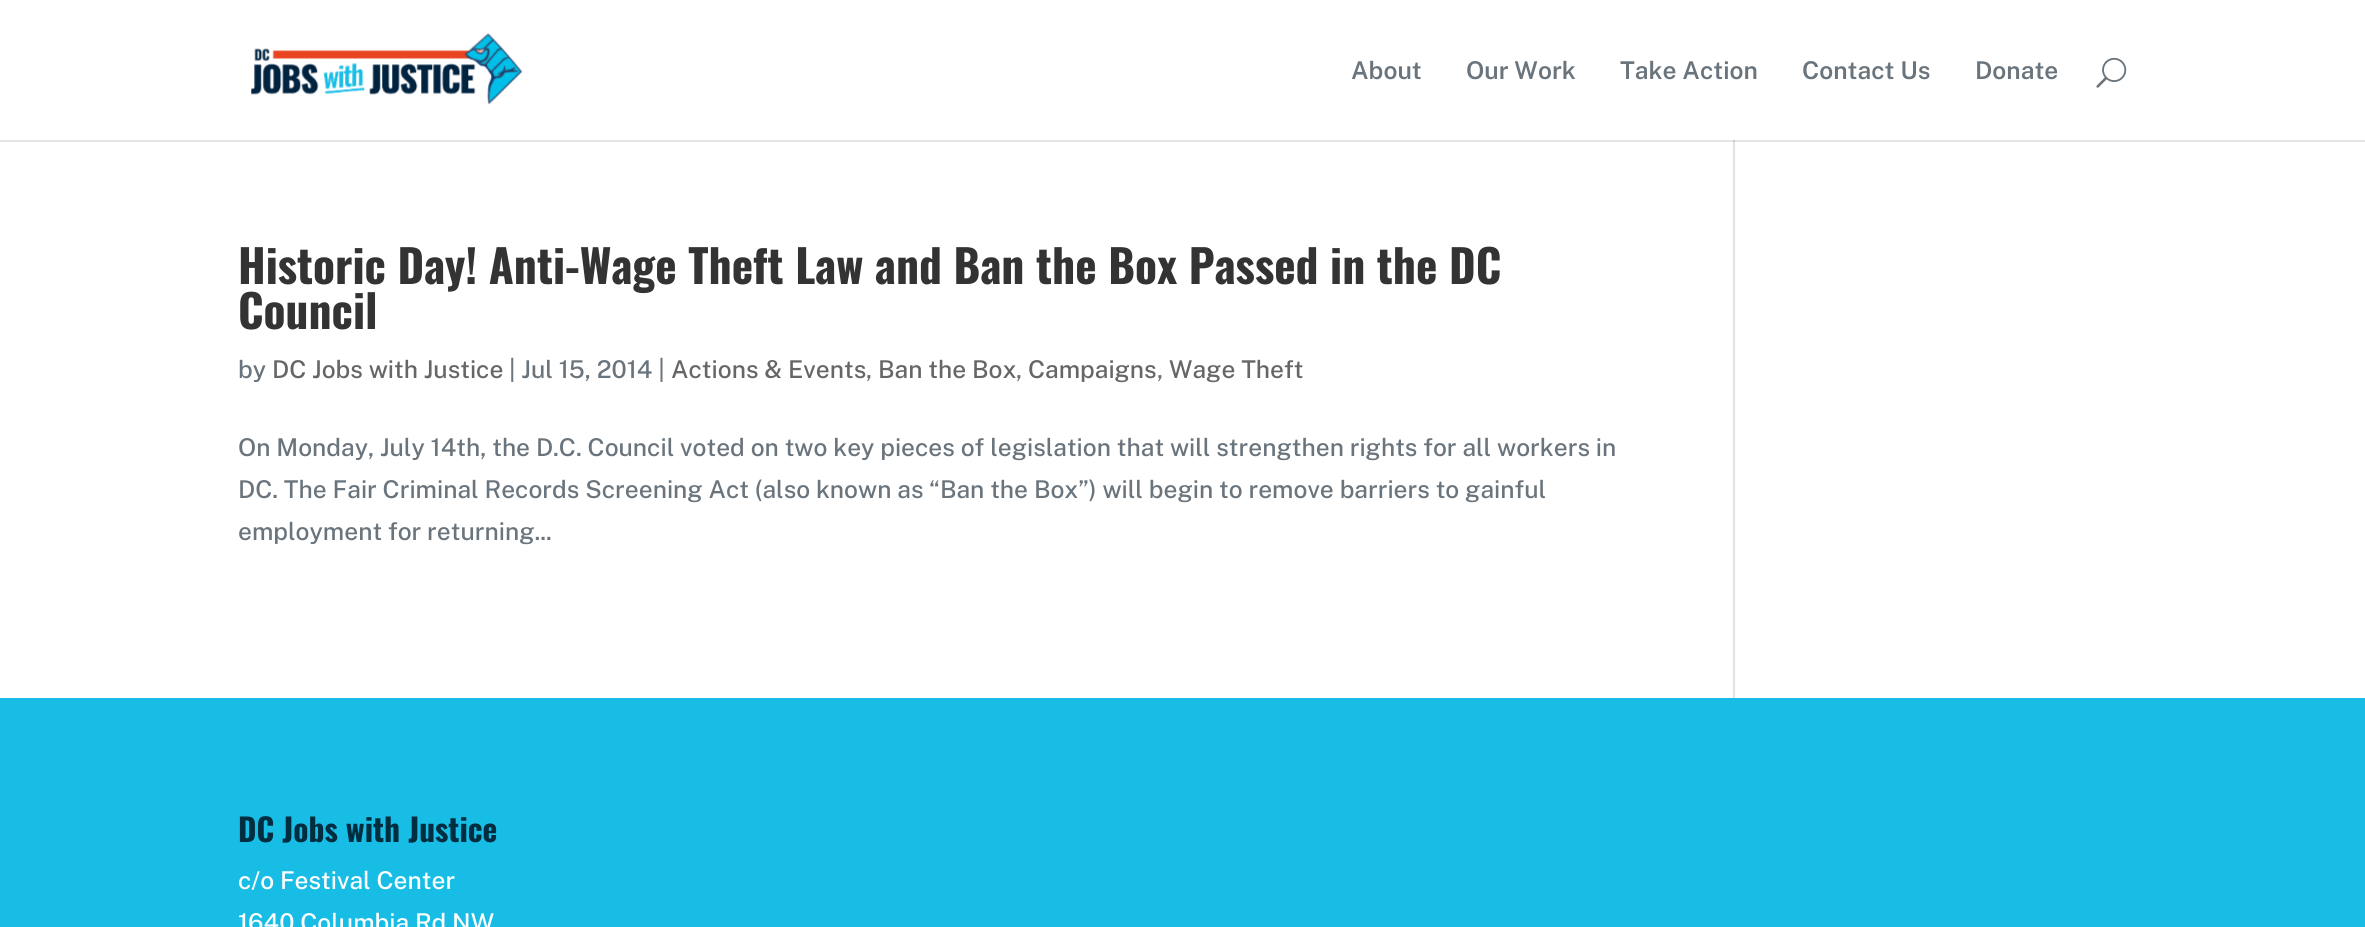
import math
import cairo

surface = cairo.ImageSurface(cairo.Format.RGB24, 2365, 927)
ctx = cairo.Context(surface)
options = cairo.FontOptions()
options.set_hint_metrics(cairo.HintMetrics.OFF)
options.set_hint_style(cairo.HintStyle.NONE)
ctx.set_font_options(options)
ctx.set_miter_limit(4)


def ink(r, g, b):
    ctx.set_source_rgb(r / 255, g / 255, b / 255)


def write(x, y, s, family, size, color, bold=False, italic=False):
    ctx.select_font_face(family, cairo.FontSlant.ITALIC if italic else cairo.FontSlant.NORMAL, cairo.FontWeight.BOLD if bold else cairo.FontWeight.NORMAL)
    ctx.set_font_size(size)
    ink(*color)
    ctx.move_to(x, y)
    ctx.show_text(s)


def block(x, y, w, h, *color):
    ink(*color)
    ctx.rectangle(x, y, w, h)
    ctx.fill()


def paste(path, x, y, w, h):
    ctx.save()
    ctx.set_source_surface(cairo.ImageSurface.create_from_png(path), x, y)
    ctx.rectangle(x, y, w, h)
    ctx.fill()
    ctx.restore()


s1 = dict(family="Public Sans SemiBold", size=24.5, color=(106, 116, 124))
s2 = dict(family="Oswald", size=45.5, color=(51, 51, 51), bold=True)
s3 = dict(family="Public Sans Medium", size=24.5, color=(106, 116, 124))
s4 = dict(family="Public Sans Medium", size=24.5, color=(102, 102, 102))
s5 = dict(family="Oswald", size=31.5, color=(0, 46, 64), bold=True)
s6 = dict(family="Public Sans Medium", size=24.5, color=(255, 255, 255))

ink(255, 255, 255)
ctx.paint()
block(0, 140, 2365, 2, 230, 230, 230)
paste("pic1.png", 251, 33, 272, 72)
write(1351, 79, "About", **s1)
write(1466, 79, "Our Work", **s1)
write(1620, 79, "Take Action", **s1)
write(1802, 79, "Contact Us", **s1)
write(1975, 79, "Donate", **s1)
paste("pic2.png", 2096, 57, 31, 31)
write(238, 284, "Historic Day! Anti-Wage Theft Law and Ban the Box Passed in the DC", **s2)
write(238, 329, "Council", **s2)
write(238, 378, "by", **s3)
write(272, 378, "DC Jobs with Justice", **s4)
write(509, 378, "| Jul 15, 2014 |", **s3)
write(671, 378, "Actions & Events", **s4)
write(866, 378, ",", **s3)
write(878, 378, "Ban the Box", **s4)
write(1016, 378, ",", **s3)
write(1028, 378, "Campaigns", **s4)
write(1157, 378, ",", **s3)
write(1169, 378, "Wage Theft", **s4)
write(238, 456, "On Monday, July 14th, the D.C. Council voted on two key pieces of legislation that will strengthen rights for all workers in", **s3)
write(238, 498, "DC. The Fair Criminal Records Screening Act (also known as “Ban the Box”) will begin to remove barriers to gainful", **s3)
write(238, 540, "employment for returning...", **s3)
block(1733, 140, 2, 558, 226, 226, 226)
block(1733, 140, 2, 2, 203, 203, 203)
block(0, 698, 2365, 229, 24, 189, 230)
write(238, 842, "DC Jobs with Justice", **s5)
write(238, 889, "c/o Festival Center", **s6)
write(238, 931, "1640 Columbia Rd NW", **s6)
surface.write_to_png("screenshot.png")
